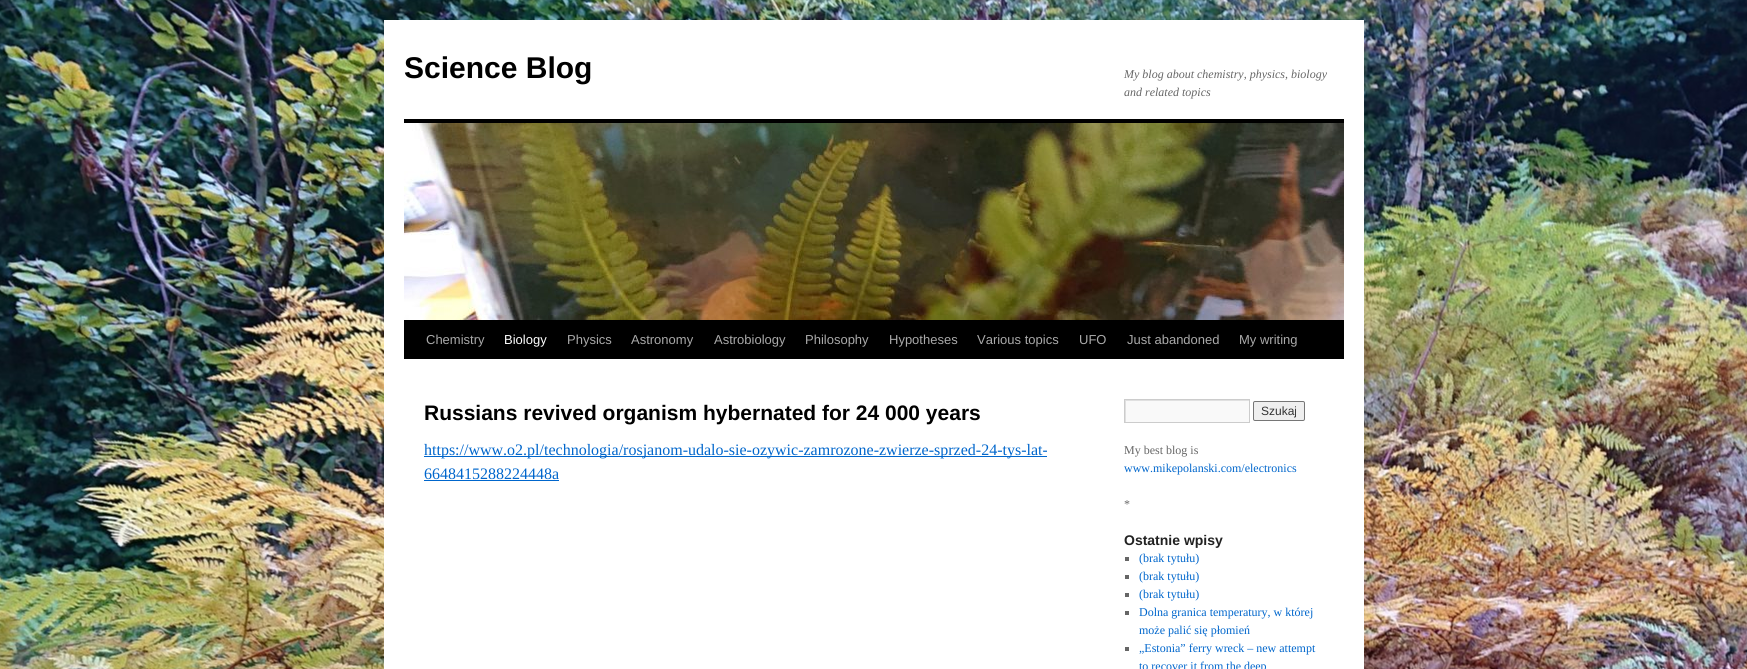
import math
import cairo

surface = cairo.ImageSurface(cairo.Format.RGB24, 1747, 669)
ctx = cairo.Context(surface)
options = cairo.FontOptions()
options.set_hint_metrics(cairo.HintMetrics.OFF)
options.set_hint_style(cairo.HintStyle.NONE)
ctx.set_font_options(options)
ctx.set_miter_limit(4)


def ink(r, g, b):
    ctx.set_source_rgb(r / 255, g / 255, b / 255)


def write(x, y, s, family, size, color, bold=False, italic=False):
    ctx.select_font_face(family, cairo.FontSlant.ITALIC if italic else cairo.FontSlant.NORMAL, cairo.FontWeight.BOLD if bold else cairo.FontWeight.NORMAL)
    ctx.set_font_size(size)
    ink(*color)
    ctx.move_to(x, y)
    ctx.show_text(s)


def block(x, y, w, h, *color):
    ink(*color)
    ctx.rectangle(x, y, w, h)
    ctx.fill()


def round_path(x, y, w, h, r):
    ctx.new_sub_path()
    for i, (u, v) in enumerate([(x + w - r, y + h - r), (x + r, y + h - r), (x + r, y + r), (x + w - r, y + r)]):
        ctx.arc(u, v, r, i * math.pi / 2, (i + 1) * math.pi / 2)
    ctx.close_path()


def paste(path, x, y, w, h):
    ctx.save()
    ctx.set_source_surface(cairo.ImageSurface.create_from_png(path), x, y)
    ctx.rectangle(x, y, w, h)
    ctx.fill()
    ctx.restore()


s1 = dict(family="Liberation Sans", size=30, color=(0, 0, 0), bold=True)
s2 = dict(family="Liberation Serif", size=12, color=(102, 102, 102), italic=True)
s3 = dict(family="Liberation Sans", size=13, color=(170, 170, 170))
s4 = dict(family="Liberation Sans", size=13, color=(255, 255, 255))
s5 = dict(family="Liberation Sans", size=21, color=(0, 0, 0), bold=True)
s6 = dict(family="Liberation Serif", size=16, color=(0, 102, 204))
s7 = dict(family="Liberation Sans", size=12, color=(51, 51, 51))
s8 = dict(family="Liberation Serif", size=12, color=(102, 102, 102))
s9 = dict(family="Liberation Serif", size=12, color=(0, 102, 204))
s10 = dict(family="Liberation Sans", size=14, color=(34, 34, 34), bold=True)

ink(255, 255, 255)
ctx.paint()
paste("pic1.png", 0, 0, 1747, 669)
block(384, 20, 980, 649, 255, 255, 255)
write(404, 78, "Science Blog", **s1)
write(1124, 78, "My blog about chemistry, physics, biology", **s2)
write(1124, 96, "and related topics", **s2)
block(404, 119, 940, 4, 0, 0, 0)
block(404, 320, 940, 39, 0, 0, 0)
paste("pic2.png", 404, 123, 940, 197)
write(426, 344, "Chemistry", **s3)
write(504, 344, "Biology", **s4)
write(567, 344, "Physics", **s3)
write(631, 344, "Astronomy", **s3)
write(714, 344, "Astrobiology", **s3)
write(805, 344, "Philosophy", **s3)
write(889, 344, "Hypotheses", **s3)
write(977, 344, "Various topics", **s3)
write(1079, 344, "UFO", **s3)
write(1127, 344, "Just abandoned", **s3)
write(1239, 344, "My writing", **s3)
write(424, 420, "Russians revived organism hybernated for 24 000 years", **s5)
block(424, 456, 623, 1, 0, 102, 204)
write(424, 455, "https://www.o2.pl/technologia/rosjanom-udalo-sie-ozywic-zamrozone-zwierze-sprzed-24-tys-lat-", **s6)
write(424, 479, "6648415288224448a", **s6)
block(424, 480, 135, 1, 0, 102, 204)
block(1126, 401, 123, 21, 249, 249, 249)
ctx.save()
ctx.rectangle(1125, 400, 124, 22)
ctx.clip()
ink(224, 224, 224)
ctx.set_fill_rule(cairo.FillRule.EVEN_ODD)
ctx.new_path()
ctx.move_to(1026, 301)
ctx.line_to(1348, 301)
ctx.line_to(1348, 521)
ctx.line_to(1026, 521)
ctx.close_path()
ctx.move_to(1126, 401)
ctx.line_to(1250, 401)
ctx.line_to(1250, 423)
ctx.line_to(1126, 423)
ctx.close_path()
ctx.fill()
ctx.restore()
ctx.rectangle(1124.5, 399.5, 125, 23)
ink(204, 204, 204)
ctx.set_line_width(1)
ctx.stroke()
ink(239, 239, 239)
round_path(1253.5, 401.5, 51, 19, 1.5)
ctx.fill_preserve()
ink(118, 118, 118)
ctx.stroke()
write(1261, 415, "Szukaj", **s7)
write(1124, 454, "My best blog is", **s8)
write(1124, 472, "www.mikepolanski.com/electronics", **s9)
write(1124, 508, "*", **s8)
write(1124, 545, "Ostatnie wpisy", **s10)
block(1125, 557, 4, 4, 102, 102, 102)
write(1139, 562, "(brak tytułu)", **s9)
block(1125, 575, 4, 4, 102, 102, 102)
write(1139, 580, "(brak tytułu)", **s9)
block(1125, 593, 4, 4, 102, 102, 102)
write(1139, 598, "(brak tytułu)", **s9)
block(1125, 611, 4, 4, 102, 102, 102)
write(1139, 616, "Dolna granica temperatury, w której", **s9)
write(1139, 634, "może palić się płomień", **s9)
block(1125, 647, 4, 4, 102, 102, 102)
write(1139, 652, "„Estonia” ferry wreck – new attempt", **s9)
write(1139, 670, "to recover it from the deep", **s9)
surface.write_to_png("screenshot.png")
